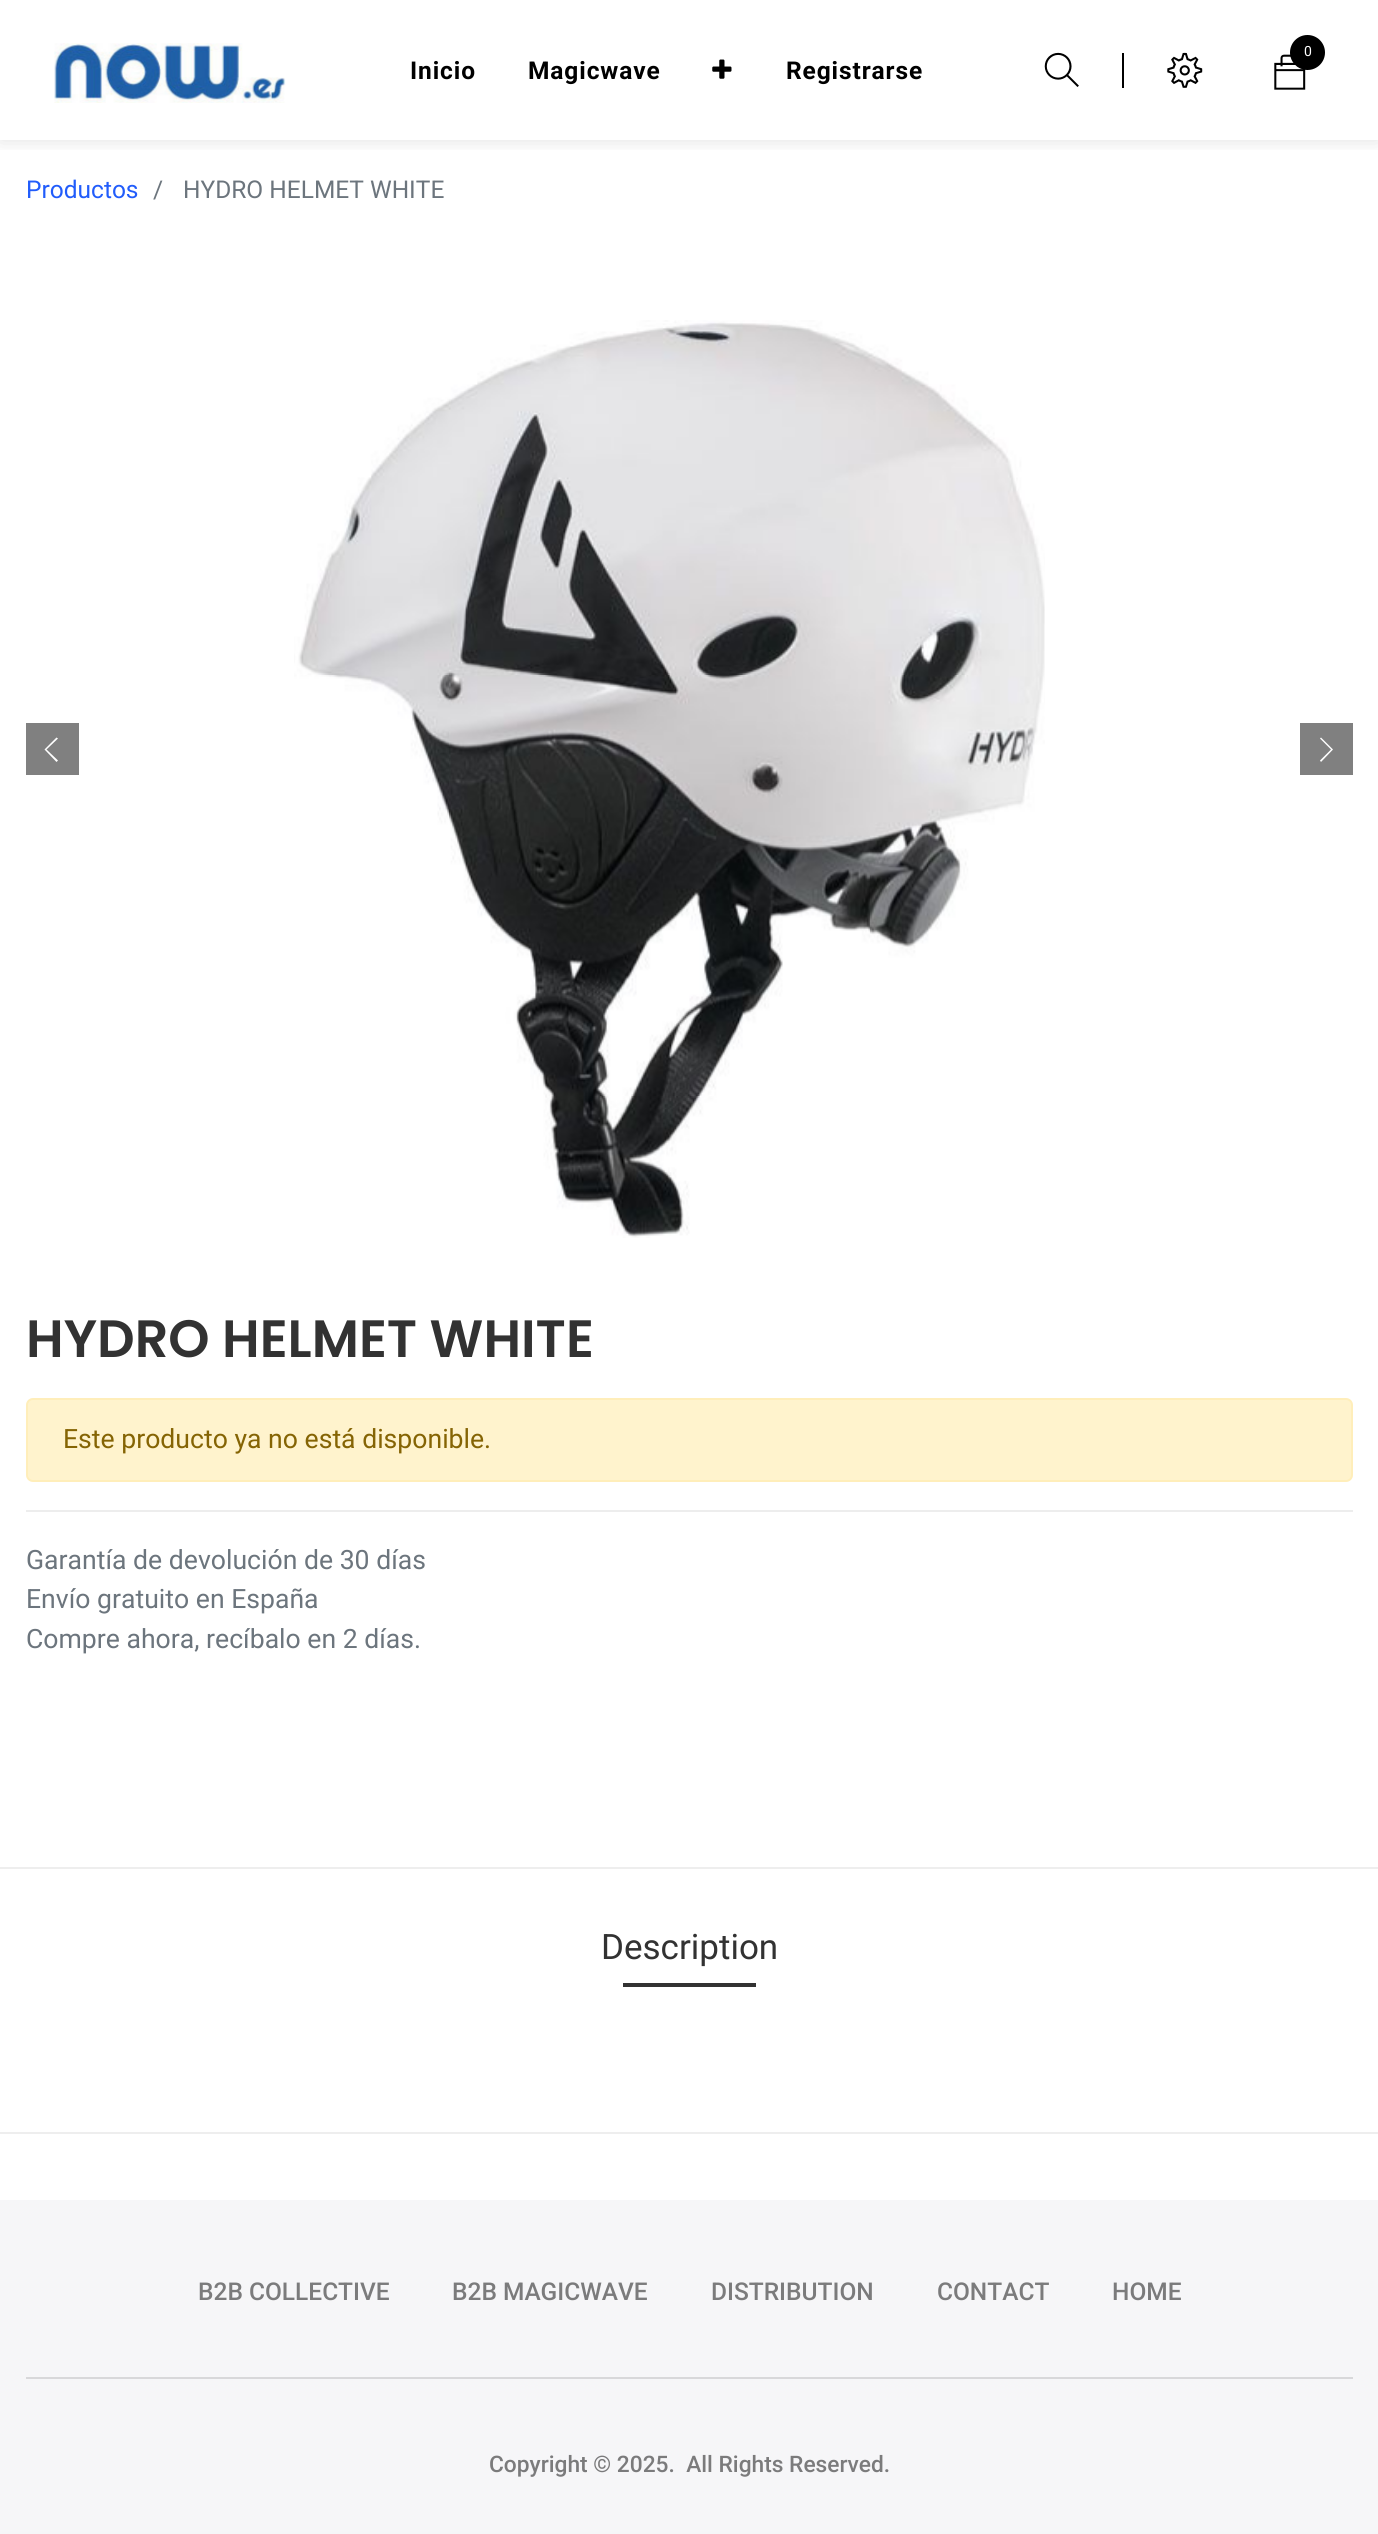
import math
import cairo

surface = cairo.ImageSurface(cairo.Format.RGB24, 1378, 2534)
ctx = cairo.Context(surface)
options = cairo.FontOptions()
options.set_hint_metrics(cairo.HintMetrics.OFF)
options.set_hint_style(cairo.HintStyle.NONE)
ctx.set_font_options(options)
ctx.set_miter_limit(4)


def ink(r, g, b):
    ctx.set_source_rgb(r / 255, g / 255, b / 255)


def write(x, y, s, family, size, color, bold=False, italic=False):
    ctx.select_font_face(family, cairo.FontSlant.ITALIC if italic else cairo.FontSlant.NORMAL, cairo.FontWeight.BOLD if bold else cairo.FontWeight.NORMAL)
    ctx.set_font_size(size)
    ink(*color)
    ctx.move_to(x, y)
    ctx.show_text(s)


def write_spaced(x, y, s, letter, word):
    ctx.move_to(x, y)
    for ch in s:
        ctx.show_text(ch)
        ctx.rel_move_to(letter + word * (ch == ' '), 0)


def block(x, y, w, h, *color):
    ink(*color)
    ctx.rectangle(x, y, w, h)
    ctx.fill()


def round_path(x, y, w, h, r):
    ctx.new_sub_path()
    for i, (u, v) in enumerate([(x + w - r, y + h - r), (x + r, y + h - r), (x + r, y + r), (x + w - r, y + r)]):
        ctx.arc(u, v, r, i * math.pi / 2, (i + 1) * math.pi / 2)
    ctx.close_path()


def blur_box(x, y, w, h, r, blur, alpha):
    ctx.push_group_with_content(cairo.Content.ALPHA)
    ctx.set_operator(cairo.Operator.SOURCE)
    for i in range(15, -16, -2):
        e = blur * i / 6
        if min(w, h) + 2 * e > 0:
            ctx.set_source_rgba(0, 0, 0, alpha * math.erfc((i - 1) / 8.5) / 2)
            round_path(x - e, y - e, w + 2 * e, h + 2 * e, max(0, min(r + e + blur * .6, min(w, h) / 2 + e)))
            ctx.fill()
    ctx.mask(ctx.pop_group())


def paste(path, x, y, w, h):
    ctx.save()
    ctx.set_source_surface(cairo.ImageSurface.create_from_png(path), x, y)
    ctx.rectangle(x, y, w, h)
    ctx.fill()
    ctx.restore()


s1 = dict(family="Roboto", size=14, color=(255, 255, 255))
s2 = dict(family="Roboto", size=24.5, color=(33, 92, 251))
s3 = dict(family="Roboto", size=24.5, color=(108, 117, 125))
s4 = dict(family="Poppins SemiBold", size=52.5, color=(50, 50, 50))
s5 = dict(family="Roboto", size=26.6, color=(133, 100, 4))
s6 = dict(family="Roboto", size=26.6, color=(108, 117, 125))
s7 = dict(family="Roboto", size=35, color=(50, 50, 50))
s8 = dict(family="Roboto Medium", size=24.5, color=(123, 123, 124))
s9 = dict(family="Roboto Medium", size=22.75, color=(123, 123, 124))

ink(255, 255, 255)
ctx.paint()
ctx.save()
ctx.rectangle(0, 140, 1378, 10)
ctx.clip()
ink(0, 0, 0)
blur_box(0, 0, 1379, 140, 0, 10.5, 0.12)
ctx.restore()
paste("pic1.png", 54, 43, 232, 60)
paste("pic2.png", 1044, 52, 35, 35)
block(1122, 53, 2, 35, 0, 0, 0)
paste("pic3.png", 1167, 52, 36, 36)
paste("pic4.png", 1274, 54, 32, 36)
ctx.arc(1307.5, 52.5, 17.5, 0, 2 * math.pi)
ctx.fill()
write(1304, 56, "0", **s1)
ctx.select_font_face("Roboto", cairo.FontSlant.NORMAL, cairo.FontWeight.BOLD)
ctx.set_font_size(24.5)
ink(0, 0, 0)
write_spaced(410, 79, "Inicio", 0.9, 0)
write_spaced(528, 79, "Magicwave", 0.9, 0)
paste("pic5.png", 712, 59, 20, 20)
write_spaced(786, 79, "Registrarse", 0.9, 0)
write(26, 198, "Productos", **s2)
write(153, 198, "/", **s3)
write(183, 198, "HYDRO HELMET WHITE", **s3)
block(26, 723, 53, 52, 128, 128, 128)
ink(255, 255, 255)
ctx.new_path()
ctx.move_to(46.5, 749.5)
ctx.line_to(58, 760.5)
ctx.line_to(56.5, 762)
ctx.line_to(44.5, 749.5)
ctx.line_to(56.5, 737.5)
ctx.line_to(58, 738.5)
ctx.close_path()
ctx.fill()
paste("pic6.png", 294, 320, 751, 918)
block(1300, 723, 53, 52, 128, 128, 128)
ink(255, 255, 255)
ctx.new_path()
ctx.move_to(1333, 749.5)
ctx.line_to(1321, 762)
ctx.line_to(1320, 760.5)
ctx.line_to(1331, 749.5)
ctx.line_to(1320, 738.5)
ctx.line_to(1321, 737.5)
ctx.close_path()
ctx.fill()
write(26, 1357, "HYDRO HELMET WHITE", **s4)
ink(255, 243, 205)
round_path(27, 1399, 1325, 82, 6)
ctx.fill_preserve()
ink(255, 238, 186)
ctx.stroke()
write(63, 1448, "Este producto ya no está disponible.", **s5)
block(26, 1510, 1327, 2, 237, 237, 237)
write(26, 1569, "Garantía de devolución de 30 días", **s6)
write(26, 1608, "Envío gratuito en España", **s6)
write(26, 1648, "Compre ahora, recíbalo en 2 días.", **s6)
block(0, 1867, 1378, 2, 238, 238, 238)
block(0, 2132, 1378, 2, 238, 238, 238)
write(601, 1959, "Description", **s7)
block(623, 1983, 133, 4, 50, 50, 50)
block(0, 2200, 1378, 334, 246, 246, 248)
write(198, 2300, "B2B COLLECTIVE", **s8)
write(452, 2300, "B2B MAGICWAVE", **s8)
write(711, 2300, "DISTRIBUTION", **s8)
write(937, 2300, "CONTACT", **s8)
write(1112, 2300, "HOME", **s8)
block(26, 2377, 1327, 2, 216, 216, 218)
write(489, 2472, "Copyright © 2025.  All Rights Reserved.", **s9)
surface.write_to_png("screenshot.png")
